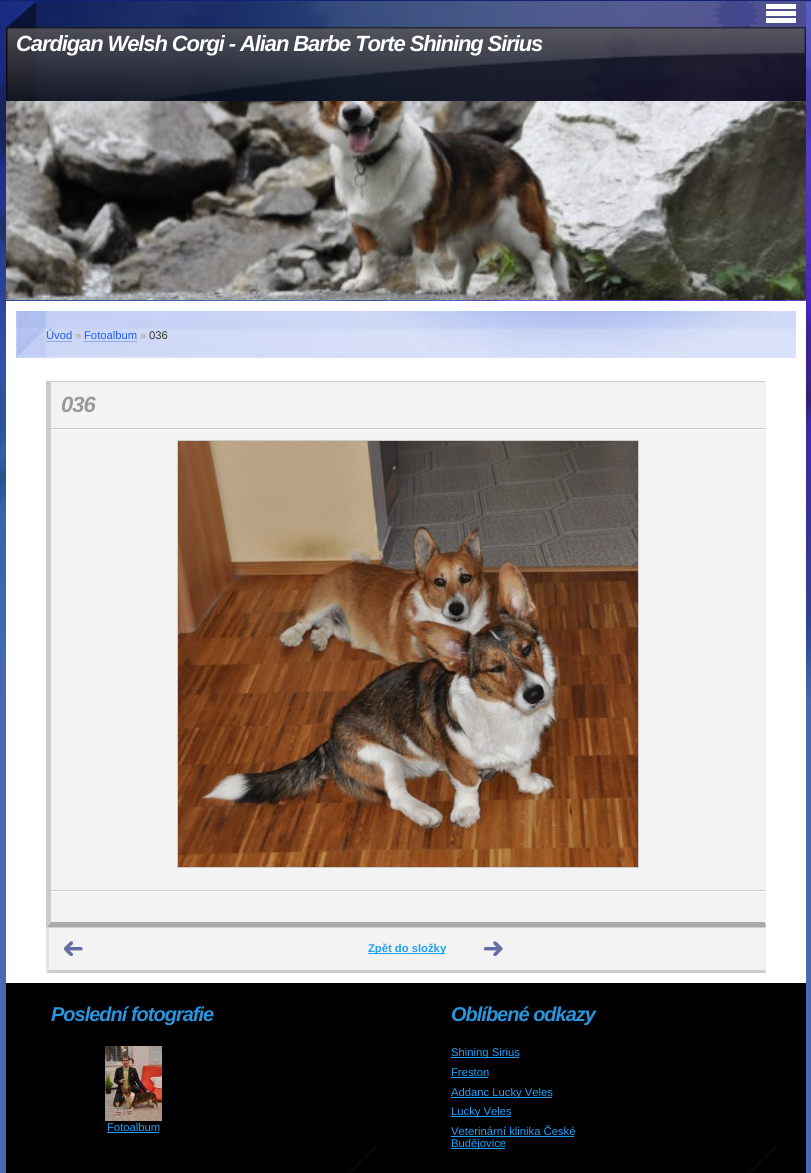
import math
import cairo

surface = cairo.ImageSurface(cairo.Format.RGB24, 811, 1173)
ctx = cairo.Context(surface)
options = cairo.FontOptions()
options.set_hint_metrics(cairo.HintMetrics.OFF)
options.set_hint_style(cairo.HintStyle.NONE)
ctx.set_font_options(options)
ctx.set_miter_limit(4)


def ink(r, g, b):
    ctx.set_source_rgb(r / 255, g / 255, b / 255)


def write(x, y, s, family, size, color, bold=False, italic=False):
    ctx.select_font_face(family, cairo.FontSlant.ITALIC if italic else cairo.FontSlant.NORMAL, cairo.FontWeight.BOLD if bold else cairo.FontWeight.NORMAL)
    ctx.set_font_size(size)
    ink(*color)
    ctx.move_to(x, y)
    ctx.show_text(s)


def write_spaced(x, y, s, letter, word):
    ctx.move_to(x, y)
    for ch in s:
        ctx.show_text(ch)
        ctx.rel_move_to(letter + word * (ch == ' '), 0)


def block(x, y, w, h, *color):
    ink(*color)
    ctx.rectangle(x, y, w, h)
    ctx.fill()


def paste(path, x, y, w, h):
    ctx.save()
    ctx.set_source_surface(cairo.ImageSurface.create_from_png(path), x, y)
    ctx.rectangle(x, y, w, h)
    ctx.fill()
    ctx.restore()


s1 = dict(family="Liberation Sans", size=11.25, color=(27, 97, 245))
s2 = dict(family="Liberation Sans", size=11.25, color=(169, 153, 133))
s3 = dict(family="Liberation Sans", size=11.25, color=(51, 51, 51))
s4 = dict(family="Liberation Sans", size=11.25, color=(30, 160, 249), bold=True)
s5 = dict(family="Liberation Sans", size=11.25, color=(30, 160, 249))

ink(72, 107, 175)
ctx.paint()
paste("pic1.png", 0, 1, 811, 697)
block(0, 0, 811, 1, 17, 35, 114)
paste("pic4.png", 6, 1, 800, 100)
block(766, 4, 30, 5, 255, 255, 255)
block(766, 11, 30, 5, 255, 255, 255)
block(766, 18, 30, 5, 255, 255, 255)
paste("pic2.png", 786, 300, 20, 1)
paste("pic3.png", 6, 101, 800, 199)
ctx.select_font_face("Liberation Sans", cairo.FontSlant.ITALIC, cairo.FontWeight.BOLD)
ctx.set_font_size(22)
write_spaced(16, 51, "Cardigan Welsh Corgi - Alian Barbe Torte Shining Sirius", -1.1, 0)
block(6, 301, 800, 682, 255, 255, 255)
paste("pic5.png", 16, 311, 780, 47)
write(46, 339, "Úvod", **s1)
block(46, 341, 26, 1, 149, 169, 231)
write(75, 339, "»", **s2)
write(84, 339, "Fotoalbum", **s1)
block(84, 341, 53, 1, 149, 169, 231)
write(140, 339, "»", **s2)
write(149, 339, "036", **s3)
block(51, 382, 714, 540, 243, 243, 243)
block(46, 381, 720, 1, 204, 204, 204)
ink(238, 238, 238)
ctx.new_path()
ctx.move_to(766, 381)
ctx.line_to(766, 927)
ctx.line_to(765, 922)
ctx.line_to(765, 382)
ctx.close_path()
ctx.fill()
ink(170, 170, 170)
ctx.new_path()
ctx.move_to(766, 927)
ctx.line_to(46, 927)
ctx.line_to(51, 922)
ctx.line_to(765, 922)
ctx.close_path()
ctx.fill()
ink(204, 204, 204)
ctx.new_path()
ctx.move_to(46, 927)
ctx.line_to(46, 381)
ctx.line_to(51, 382)
ctx.line_to(51, 922)
ctx.close_path()
ctx.fill()
block(51, 428, 714, 1, 204, 204, 204)
ctx.select_font_face("Liberation Sans", cairo.FontSlant.ITALIC, cairo.FontWeight.BOLD)
ctx.set_font_size(22)
ink(153, 153, 153)
write_spaced(61, 412, "036", -1, 0)
block(51, 429, 714, 1, 255, 255, 255)
block(51, 890, 714, 1, 204, 204, 204)
ctx.rectangle(177.5, 440.5, 461, 427)
ctx.set_line_width(1)
ctx.stroke()
paste("pic6.png", 178, 441, 460, 426)
block(51, 891, 714, 1, 255, 255, 255)
block(49, 928, 716, 42, 243, 243, 243)
ink(204, 204, 204)
ctx.new_path()
ctx.move_to(46, 927)
ctx.line_to(766, 927)
ctx.line_to(765, 928)
ctx.line_to(49, 928)
ctx.close_path()
ctx.fill()
ink(238, 238, 238)
ctx.new_path()
ctx.move_to(766, 927)
ctx.line_to(766, 973)
ctx.line_to(765, 970)
ctx.line_to(765, 928)
ctx.close_path()
ctx.fill()
ink(204, 204, 204)
ctx.new_path()
ctx.move_to(766, 973)
ctx.line_to(46, 973)
ctx.line_to(49, 970)
ctx.line_to(765, 970)
ctx.close_path()
ctx.fill()
ink(229, 229, 229)
ctx.new_path()
ctx.move_to(46, 973)
ctx.line_to(46, 927)
ctx.line_to(49, 928)
ctx.line_to(49, 970)
ctx.close_path()
ctx.fill()
paste("pic7.png", 64, 941, 19, 15)
block(368, 953, 77, 1, 30, 160, 249)
write(368, 952, "Zpět do složky", **s4)
paste("pic8.png", 484, 941, 19, 15)
block(6, 983, 800, 190, 0, 0, 0)
paste("pic9.png", 348, 1146, 28, 27)
ctx.select_font_face("Liberation Sans", cairo.FontSlant.ITALIC, cairo.FontWeight.BOLD)
ctx.set_font_size(20)
ink(42, 148, 221)
write_spaced(51, 1021, "Poslední fotografie", -1, 0)
paste("pic10.png", 105, 1046, 57, 75)
write(107, 1131, "Fotoalbum", **s5)
block(107, 1132, 52, 1, 30, 160, 249)
paste("pic11.png", 748, 1146, 28, 27)
ctx.select_font_face("Liberation Sans", cairo.FontSlant.ITALIC, cairo.FontWeight.BOLD)
ctx.set_font_size(20)
ink(42, 148, 221)
write_spaced(451, 1021, "Oblíbené odkazy", -1, 0)
block(451, 1057, 68, 1, 30, 160, 249)
write(451, 1056, "Shining Sirius", **s5)
write(451, 1076, "Freston", **s5)
block(451, 1077, 37, 1, 30, 160, 249)
block(451, 1097, 101, 1, 30, 160, 249)
write(451, 1096, "Addanc Lucky Veles", **s5)
block(451, 1116, 60, 1, 30, 160, 249)
write(451, 1115, "Lucky Veles", **s5)
write(451, 1135, "Veterinární klinika České", **s5)
block(451, 1136, 123, 1, 30, 160, 249)
block(451, 1148, 54, 1, 30, 160, 249)
write(451, 1147, "Budějovice", **s5)
surface.write_to_png("screenshot.png")
